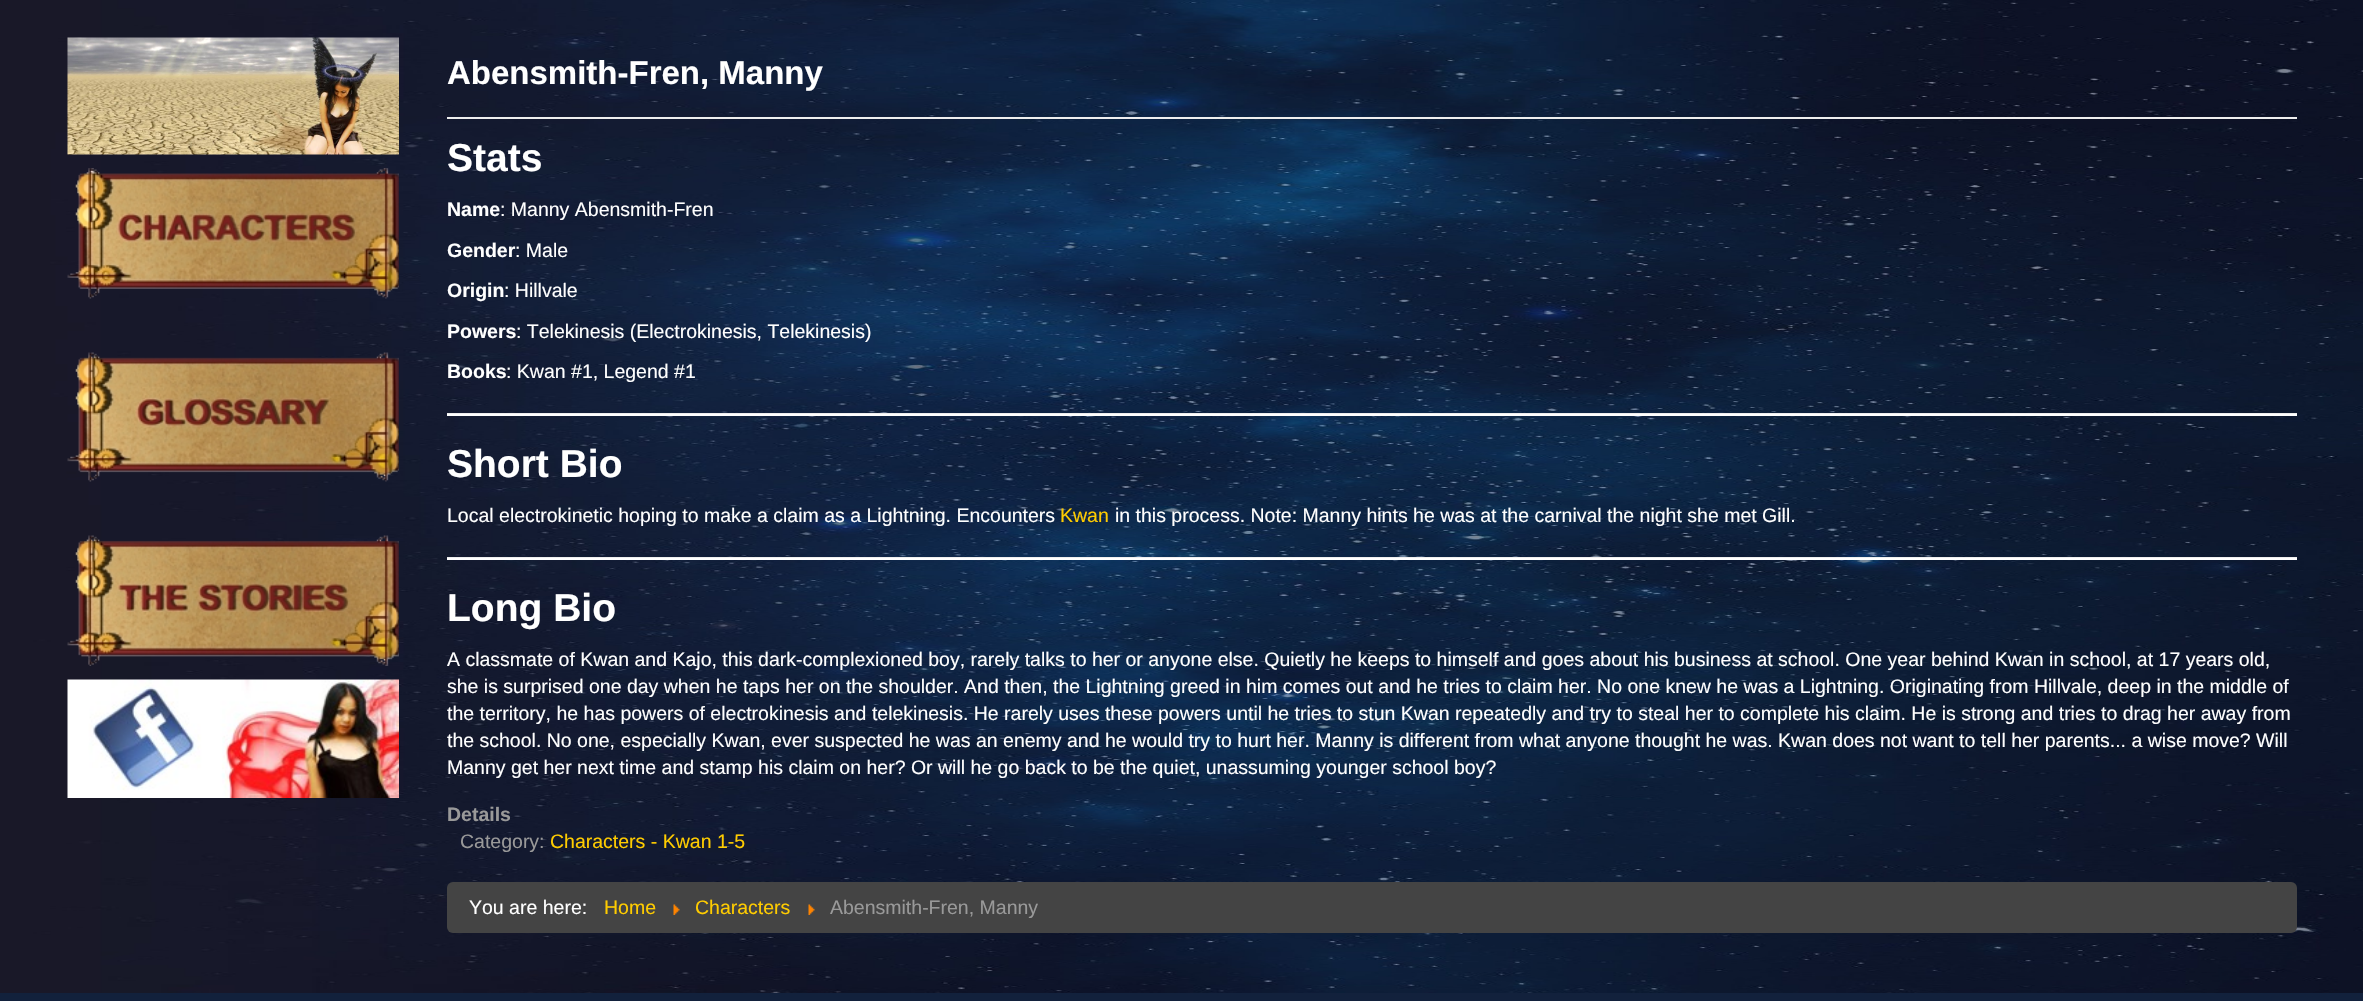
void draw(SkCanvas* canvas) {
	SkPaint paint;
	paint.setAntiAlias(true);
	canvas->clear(0xff12213c);
	canvas->drawImageRect(SkImages::DeferredFromEncodedData(SkData::MakeFromFileName("img1.png")), SkRect::MakeXYWH(0, 0, 2363, 993), SkSamplingOptions());
	canvas->drawImageRect(SkImages::DeferredFromEncodedData(SkData::MakeFromFileName("img2.png")), SkRect::MakeXYWH(67, 37, 332, 118), SkSamplingOptions());
	canvas->drawImageRect(SkImages::DeferredFromEncodedData(SkData::MakeFromFileName("img3.png")), SkRect::MakeXYWH(67, 168, 332, 131), SkSamplingOptions());
	canvas->drawImageRect(SkImages::DeferredFromEncodedData(SkData::MakeFromFileName("img4.png")), SkRect::MakeXYWH(67, 352, 332, 130), SkSamplingOptions());
	canvas->drawImageRect(SkImages::DeferredFromEncodedData(SkData::MakeFromFileName("img5.png")), SkRect::MakeXYWH(67, 535, 332, 131), SkSamplingOptions());
	canvas->drawImageRect(SkImages::DeferredFromEncodedData(SkData::MakeFromFileName("img6.png")), SkRect::MakeXYWH(67, 679, 332, 119), SkSamplingOptions());
	paint.setColor(0xffeeeeee);
	canvas->drawRect(SkRect::MakeXYWH(447, 117, 1850, 2), paint);
	SkFont f1(fontMgr->matchFamilyStyle("Liberation Sans", SkFontStyle::Bold()), 33);
	f1.setSubpixel(true);
	paint.setColor(0xffffffff);
	canvas->drawString("Abensmith-Fren, Manny", 447, 84, f1, paint);
	SkFont f2(fontMgr->matchFamilyStyle("Liberation Sans", SkFontStyle::Bold()), 39);
	f2.setSubpixel(true);
	canvas->drawString("Stats", 447, 171, f2, paint);
	SkFont f3(fontMgr->matchFamilyStyle("Liberation Sans", SkFontStyle::Bold()), 19.5);
	f3.setSubpixel(true);
	canvas->drawString("Name", 447, 216, f3, paint);
	SkFont f4(fontMgr->matchFamilyStyle("Liberation Sans", SkFontStyle::Normal()), 19.5);
	f4.setSubpixel(true);
	canvas->drawString(": Manny Abensmith-Fren", 500, 216, f4, paint);
	canvas->drawString("Gender", 447, 257, f3, paint);
	canvas->drawString(": Male", 515, 257, f4, paint);
	canvas->drawString("Origin", 447, 297, f3, paint);
	canvas->drawString(": Hillvale", 504, 297, f4, paint);
	canvas->drawString("Powers", 447, 338, f3, paint);
	canvas->drawString(": Telekinesis (Electrokinesis, Telekinesis)", 516, 338, f4, paint);
	canvas->drawString("Books", 447, 378, f3, paint);
	canvas->drawString(": Kwan #1, Legend #1", 506, 378, f4, paint);
	paint.setColor(0xffeeeeee);
	canvas->drawRect(SkRect::MakeXYWH(447, 413, 1850, 1), paint);
	paint.setColor(0xffffffff);
	canvas->drawRect(SkRect::MakeXYWH(447, 414, 1850, 2), paint);
	canvas->drawString("Short Bio", 447, 477, f2, paint);
	canvas->drawString("Local electrokinetic hoping to make a claim as a Lightning. Encounters", 447, 522, f4, paint);
	paint.setColor(0xffffcc00);
	canvas->drawString("Kwan", 1060, 522, f4, paint);
	paint.setColor(0xffffffff);
	canvas->drawString("in this process. Note: Manny hints he was at the carnival the night she met Gill.", 1115, 522, f4, paint);
	paint.setColor(0xffeeeeee);
	canvas->drawRect(SkRect::MakeXYWH(447, 557, 1850, 1), paint);
	paint.setColor(0xffffffff);
	canvas->drawRect(SkRect::MakeXYWH(447, 558, 1850, 2), paint);
	canvas->drawString("Long Bio", 447, 621, f2, paint);
	canvas->drawString("A classmate of Kwan and Kajo, this dark-complexioned boy, rarely talks to her or anyone else. Quietly he keeps to himself and goes about his business at school. One year behind Kwan in school, at 17 years old,", 447, 666, f4, paint);
	canvas->drawString("she is surprised one day when he taps her on the shoulder. And then, the Lightning greed in him comes out and he tries to claim her. No one knew he was a Lightning. Originating from Hillvale, deep in the middle of", 447, 693, f4, paint);
	canvas->drawString("the territory, he has powers of electrokinesis and telekinesis. He rarely uses these powers until he tries to stun Kwan repeatedly and try to steal her to complete his claim. He is strong and tries to drag her away from", 447, 720, f4, paint);
	canvas->drawString("the school. No one, especially Kwan, ever suspected he was an enemy and he would try to hurt her. Manny is different from what anyone thought he was. Kwan does not want to tell her parents... a wise move? Will", 447, 747, f4, paint);
	canvas->drawString("Manny get her next time and stamp his claim on her? Or will he go back to be the quiet, unassuming younger school boy?", 447, 774, f4, paint);
	paint.setColor(0xff999999);
	canvas->drawString("Details", 447, 821, f3, paint);
	canvas->drawString("Category:", 460, 848, f4, paint);
	paint.setColor(0xffffcc00);
	canvas->drawString("Characters - Kwan 1-5", 550, 848, f4, paint);
	paint.setColor(0xff444444);
	canvas->drawRoundRect(SkRect::MakeXYWH(447, 882, 1850, 51), 6, 6, paint);
	paint.setColor(0xffffffff);
	canvas->drawString("You are here:", 469, 914, f4, paint);
	paint.setColor(0xffffcc00);
	canvas->drawString("Home", 604, 914, f4, paint);
	canvas->drawImageRect(SkImages::DeferredFromEncodedData(SkData::MakeFromFileName("img7.png")), SkRect::MakeXYWH(673, 904, 7, 11), SkSamplingOptions());
	canvas->drawString("Characters", 695, 914, f4, paint);
	canvas->drawImageRect(SkImages::DeferredFromEncodedData(SkData::MakeFromFileName("img7.png")), SkRect::MakeXYWH(808, 904, 7, 11), SkSamplingOptions());
	paint.setColor(0xff999999);
	canvas->drawString("Abensmith-Fren, Manny", 830, 914, f4, paint);
}
